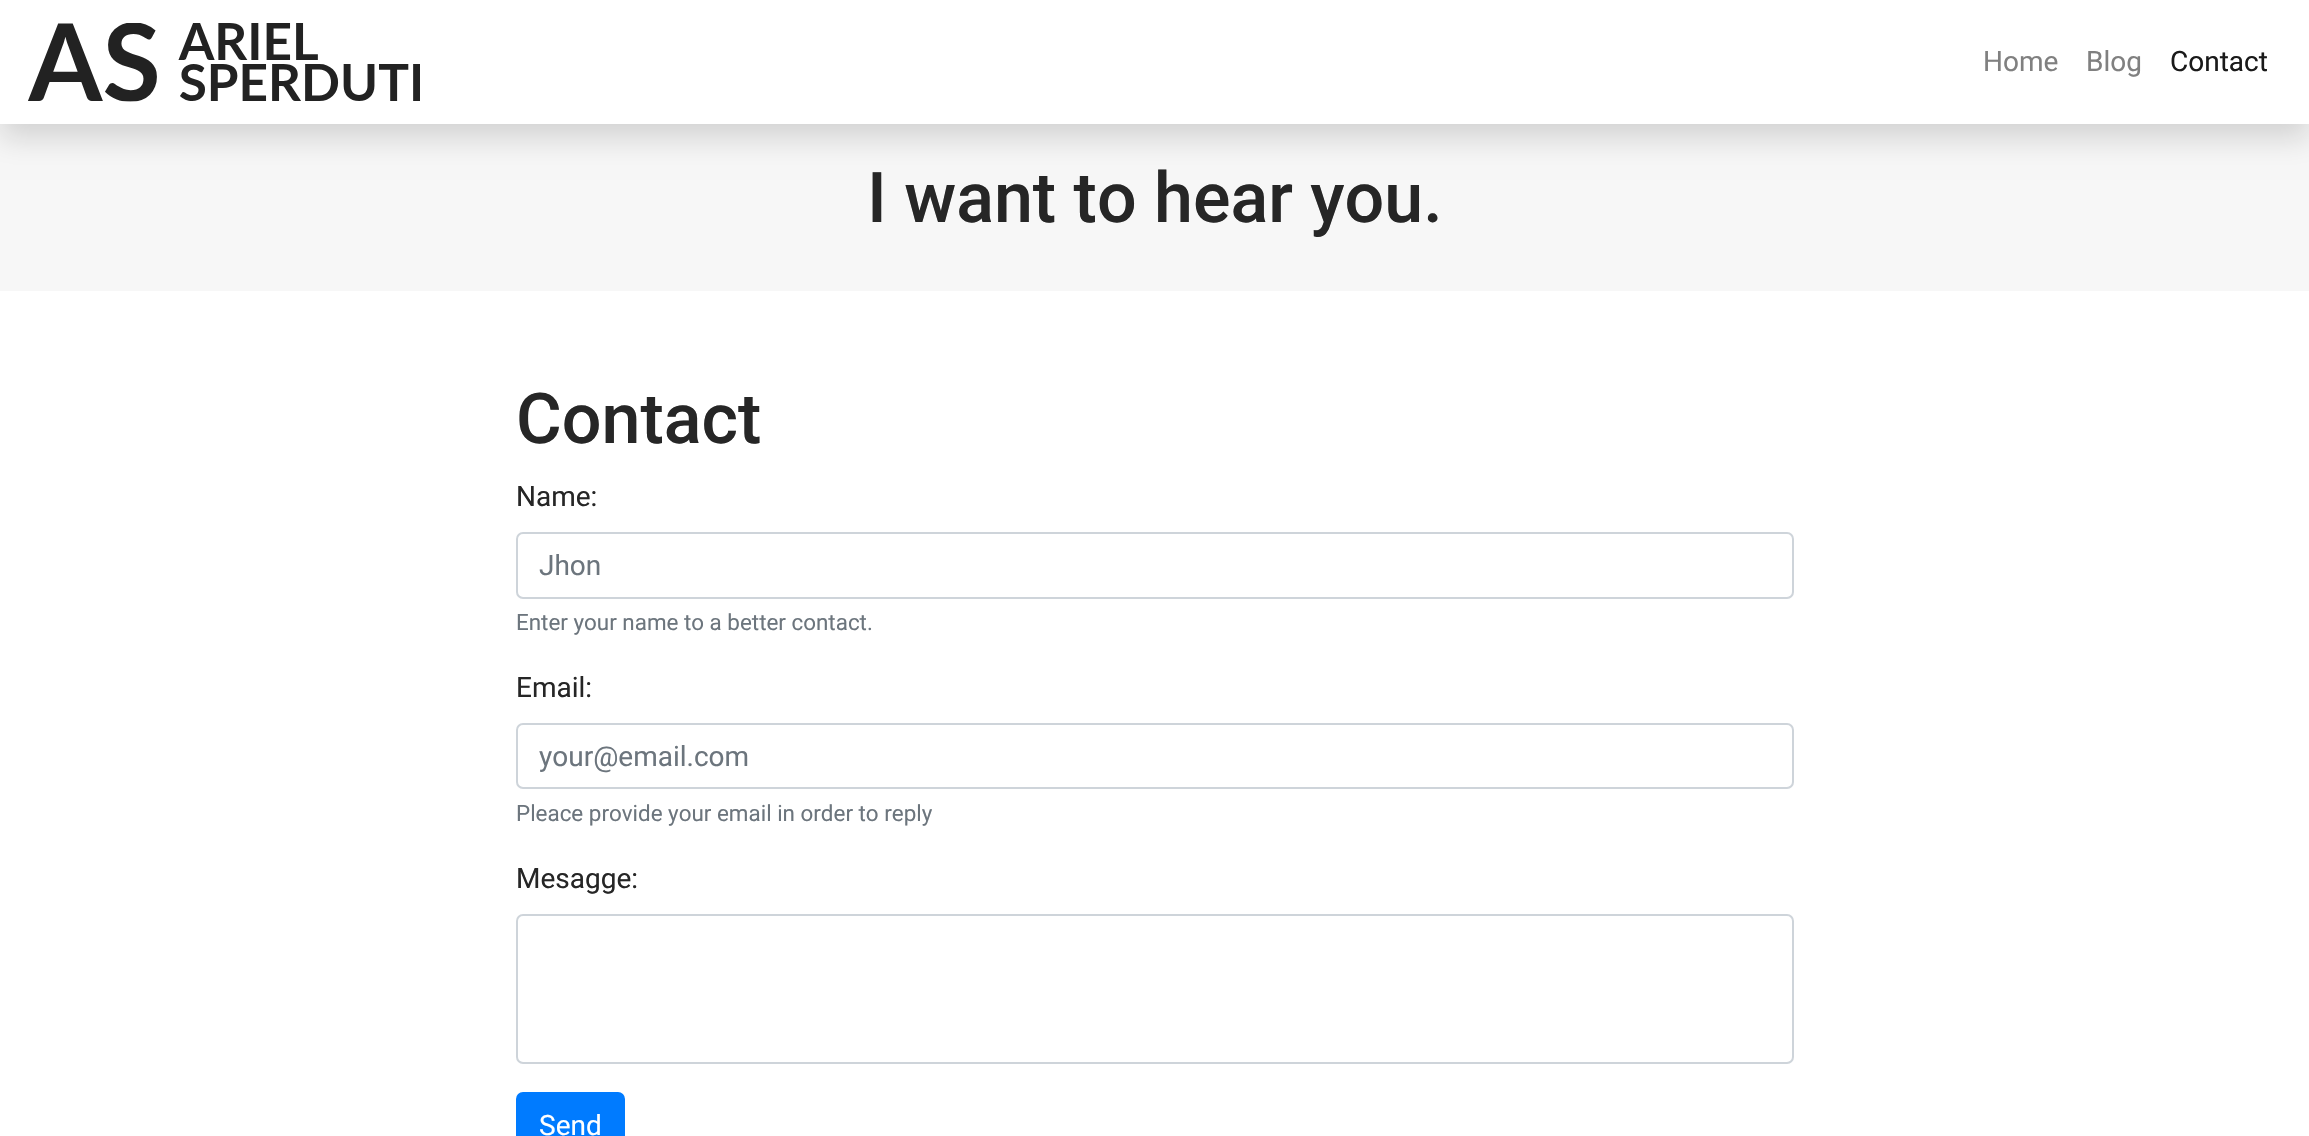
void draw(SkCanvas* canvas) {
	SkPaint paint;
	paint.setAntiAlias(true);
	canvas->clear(0xffffffff);
	paint.setColor(0xfff7f7f7);
	canvas->drawRect(SkRect::MakeXYWH(0, 124, 2309, 167), paint);
	paint.setColor(0x26000000);
	paint.setMaskFilter(SkMaskFilter::MakeBlur(kNormal_SkBlurStyle, 14));
	canvas->drawRect(SkRect::MakeXYWH(0, 14, 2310, 124), paint);
	paint.setMaskFilter(nullptr);
	paint.setColor(0xffffffff);
	canvas->drawRect(SkRect::MakeXYWH(0, 0, 2309, 124), paint);
	canvas->drawImageRect(SkImages::DeferredFromEncodedData(SkData::MakeFromFileName("img1.png")), SkRect::MakeXYWH(28, 23, 392, 79), SkSamplingOptions());
	SkFont f1(fontMgr->matchFamilyStyle("Roboto", SkFontStyle::Normal()), 28);
	f1.setSubpixel(true);
	paint.setColor(0xff808080);
	canvas->drawString("Home", 1983, 71, f1, paint);
	canvas->drawString("Blog", 2086, 71, f1, paint);
	paint.setColor(0xff1a1a1a);
	canvas->drawString("Contact", 2170, 71, f1, paint);
	SkFont f2(fontMgr->matchFamilyStyle("Roboto", SkFontStyle(500, SkFontStyle::kNormal_Width, SkFontStyle::kUpright_Slant)), 70);
	f2.setSubpixel(true);
	paint.setColor(0xff262626);
	canvas->drawString("I want to hear you.", 867, 222, f2, paint);
	canvas->drawString("Contact", 516, 443, f2, paint);
	canvas->drawString("Name:", 516, 506, f1, paint);
	paint.setStroke(true);
	paint.setStrokeWidth(2);
	paint.setColor(0xffced4da);
	canvas->drawRoundRect(SkRect::MakeXYWH(517, 533, 1276, 65), 6, 6, paint);
	paint.setStroke(false);
	paint.setColor(0xff6c757d);
	canvas->drawString("Jhon", 539, 575, f1, paint);
	SkFont f3(fontMgr->matchFamilyStyle("Roboto", SkFontStyle::Normal()), 22.4);
	f3.setSubpixel(true);
	canvas->drawString("Enter your name to a better contact.", 516, 630, f3, paint);
	paint.setColor(0xff262626);
	canvas->drawString("Email:", 516, 697, f1, paint);
	paint.setStroke(true);
	paint.setColor(0xffced4da);
	canvas->drawRoundRect(SkRect::MakeXYWH(517, 724, 1276, 64), 6, 6, paint);
	paint.setStroke(false);
	paint.setColor(0xff6c757d);
	canvas->drawString("your@email.com", 539, 766, f1, paint);
	canvas->drawString("Pleace provide your email in order to reply", 516, 821, f3, paint);
	paint.setColor(0xff262626);
	canvas->drawString("Mesagge:", 516, 888, f1, paint);
	paint.setStroke(true);
	paint.setColor(0xffced4da);
	canvas->drawRoundRect(SkRect::MakeXYWH(517, 915, 1276, 148), 6, 6, paint);
	paint.setStroke(false);
	paint.setColor(0xff007bff);
	canvas->drawRoundRect(SkRect::MakeXYWH(517, 1093, 107, 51), 6, 6, paint);
	paint.setStroke(true);
	canvas->drawRoundRect(SkRect::MakeXYWH(517, 1093, 107, 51), 6, 6, paint);
	paint.setStroke(false);
	paint.setColor(0xffffffff);
	canvas->drawString("Send", 539, 1135, f1, paint);
}
